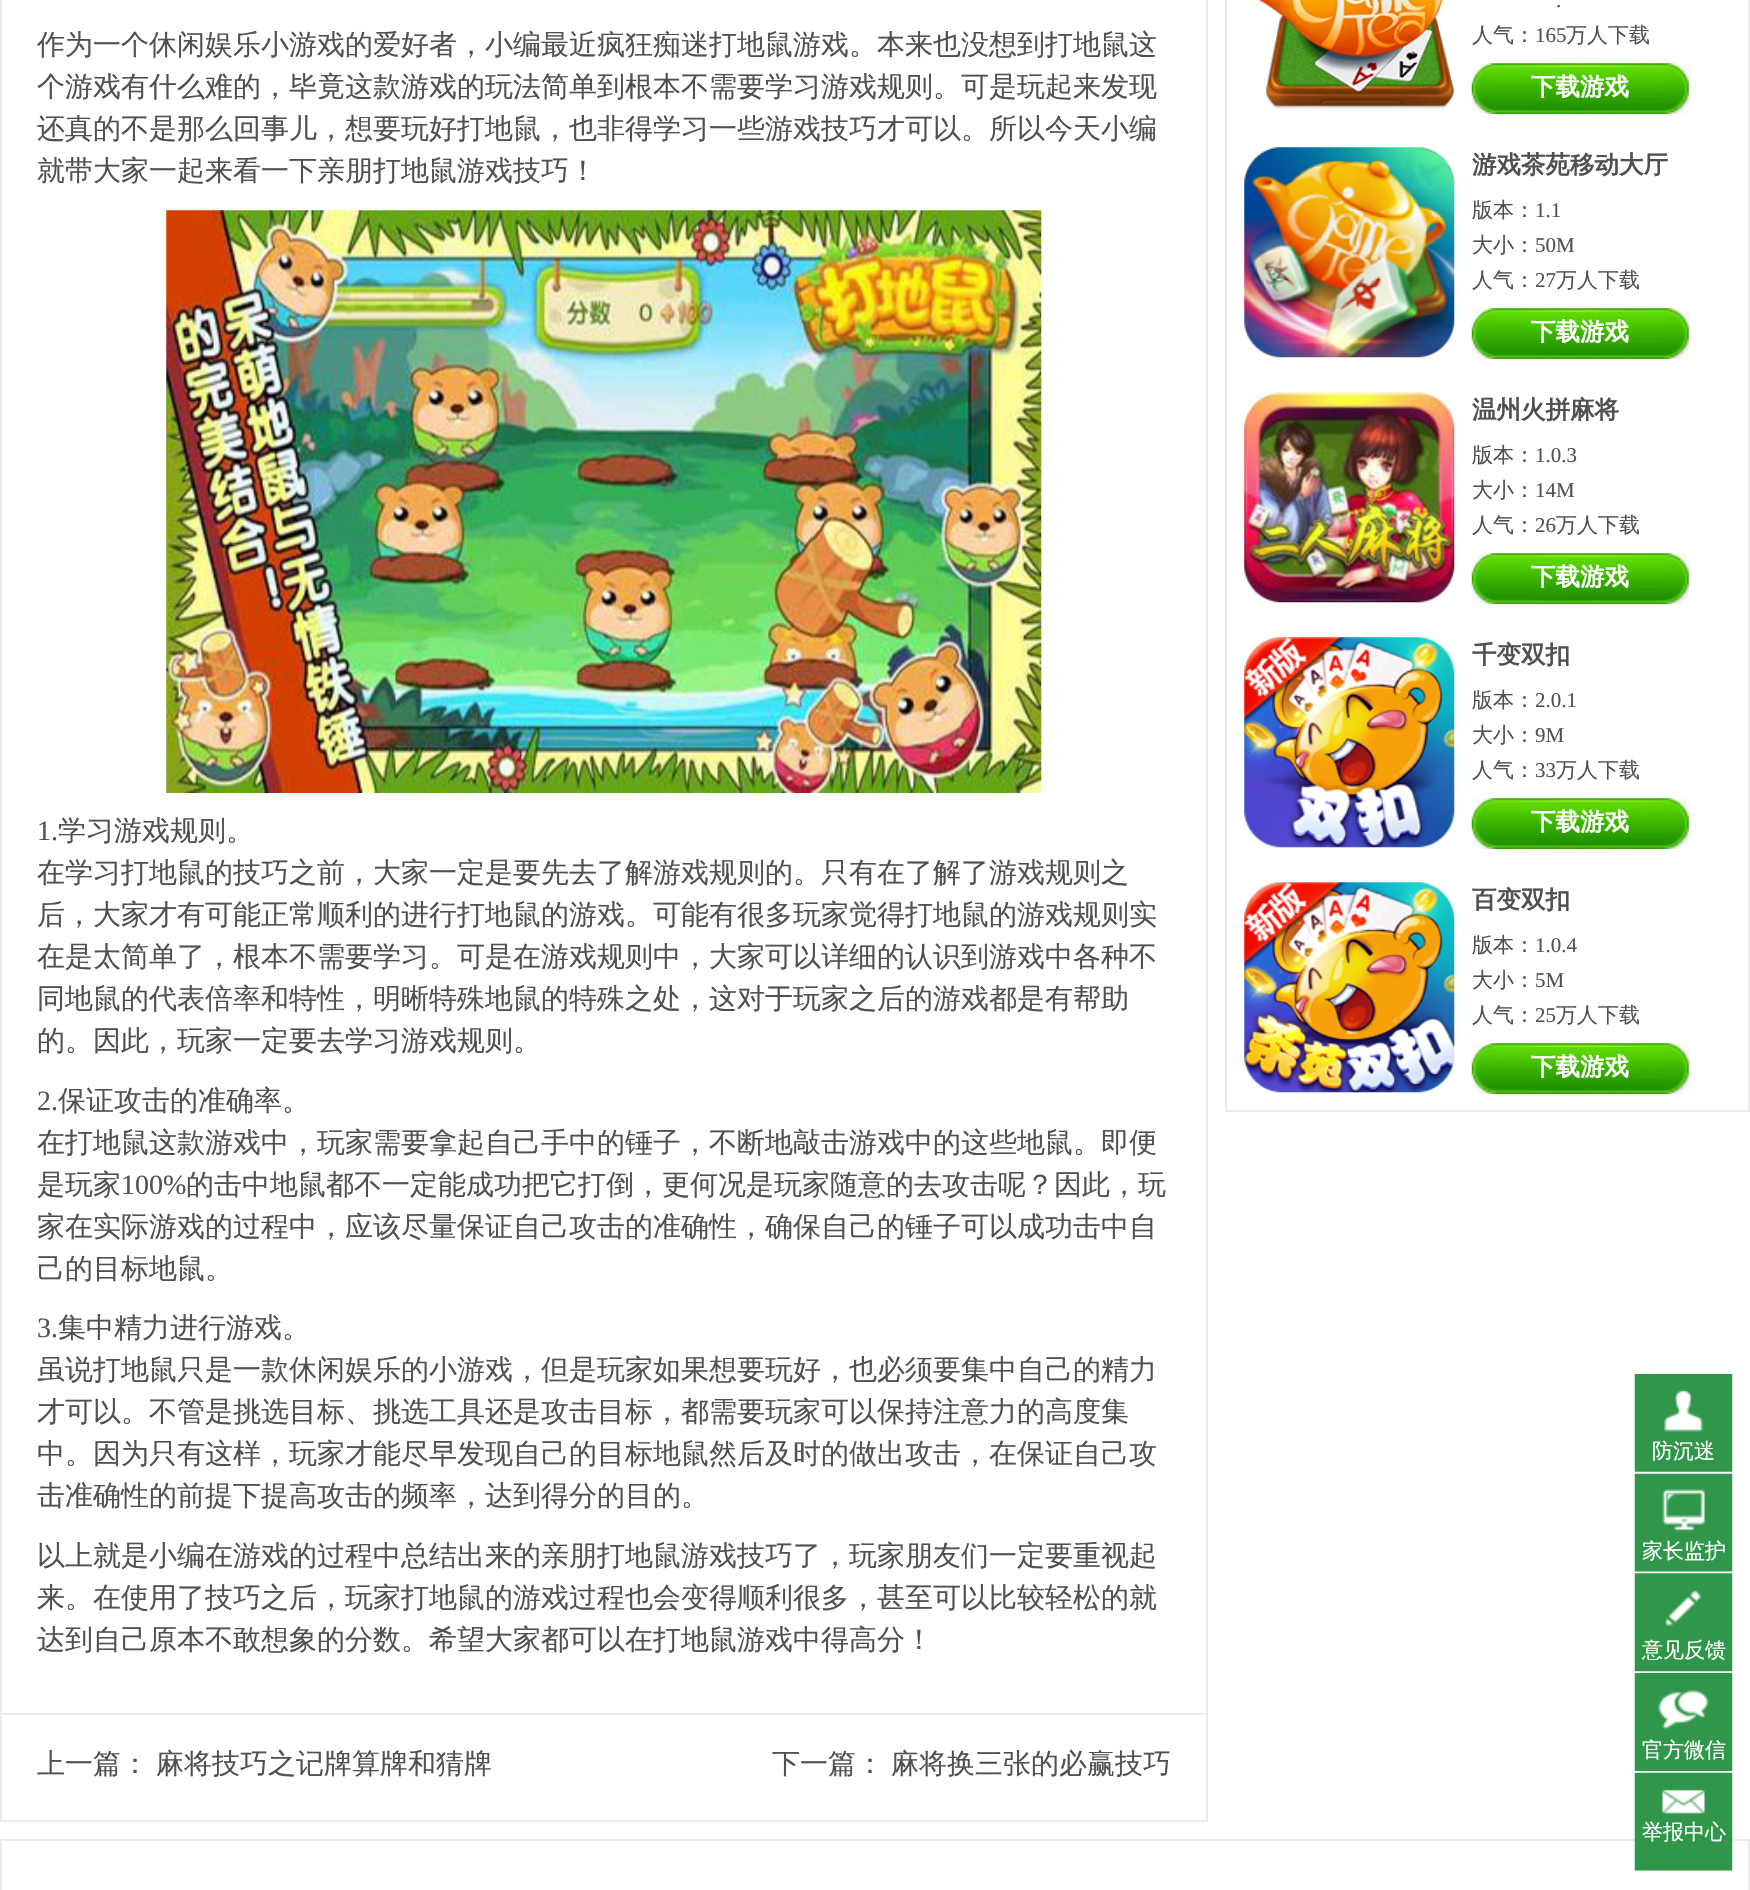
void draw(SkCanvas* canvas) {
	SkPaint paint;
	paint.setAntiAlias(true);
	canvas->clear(0xffffffff);
	paint.setColor(0xffebebeb);
	canvas->drawRect(SkRect::MakeXYWH(1206, 0, 2, 1822), paint);
	canvas->drawRect(SkRect::MakeXYWH(0, 1820, 1208, 2), paint);
	canvas->drawRect(SkRect::MakeXYWH(0, 0, 2, 1822), paint);
	SkFont f1(fontMgr->matchFamilyStyle("WenQuanYi Zen Hei", SkFontStyle(500, SkFontStyle::kNormal_Width, SkFontStyle::kUpright_Slant)), 28);
	f1.setSubpixel(true);
	paint.setColor(0xff505050);
	canvas->drawString("作为一个休闲娱乐小游戏的爱好者，小编最近疯狂痴迷打地鼠游戏。本来也没想到打地鼠这", 37, 54, f1, paint);
	canvas->drawString("个游戏有什么难的，毕竟这款游戏的玩法简单到根本不需要学习游戏规则。可是玩起来发现", 37, 96, f1, paint);
	canvas->drawString("还真的不是那么回事儿，想要玩好打地鼠，也非得学习一些游戏技巧才可以。所以今天小编", 37, 138, f1, paint);
	canvas->drawString("就带大家一起来看一下亲朋打地鼠游戏技巧！", 37, 180, f1, paint);
	canvas->drawImageRect(SkImages::DeferredFromEncodedData(SkData::MakeFromFileName("img1.png")), SkRect::MakeXYWH(166, 210, 876, 583), SkSamplingOptions());
	SkFont f2(fontMgr->matchFamilyStyle("Liberation Serif", SkFontStyle::Normal()), 28);
	f2.setSubpixel(true);
	canvas->drawString("1.", 37, 840, f2, paint);
	canvas->drawString("学习游戏规则。", 58, 840, f1, paint);
	canvas->drawString("在学习打地鼠的技巧之前，大家一定是要先去了解游戏规则的。只有在了解了游戏规则之", 37, 882, f1, paint);
	canvas->drawString("后，大家才有可能正常顺利的进行打地鼠的游戏。可能有很多玩家觉得打地鼠的游戏规则实", 37, 924, f1, paint);
	canvas->drawString("在是太简单了，根本不需要学习。可是在游戏规则中，大家可以详细的认识到游戏中各种不", 37, 966, f1, paint);
	canvas->drawString("同地鼠的代表倍率和特性，明晰特殊地鼠的特殊之处，这对于玩家之后的游戏都是有帮助", 37, 1008, f1, paint);
	canvas->drawString("的。因此，玩家一定要去学习游戏规则。", 37, 1050, f1, paint);
	canvas->drawString("2.", 37, 1110, f2, paint);
	canvas->drawString("保证攻击的准确率。", 58, 1110, f1, paint);
	canvas->drawString("在打地鼠这款游戏中，玩家需要拿起自己手中的锤子，不断地敲击游戏中的这些地鼠。即便", 37, 1152, f1, paint);
	canvas->drawString("是玩家", 37, 1194, f1, paint);
	canvas->drawString("100%", 121, 1194, f2, paint);
	canvas->drawString("的击中地鼠都不一定能成功把它打倒，更何况是玩家随意的去攻击呢？因此，玩", 186, 1194, f1, paint);
	canvas->drawString("家在实际游戏的过程中，应该尽量保证自己攻击的准确性，确保自己的锤子可以成功击中自", 37, 1236, f1, paint);
	canvas->drawString("己的目标地鼠。", 37, 1278, f1, paint);
	canvas->drawString("3.", 37, 1337, f2, paint);
	canvas->drawString("集中精力进行游戏。", 58, 1337, f1, paint);
	canvas->drawString("虽说打地鼠只是一款休闲娱乐的小游戏，但是玩家如果想要玩好，也必须要集中自己的精力", 37, 1379, f1, paint);
	canvas->drawString("才可以。不管是挑选目标、挑选工具还是攻击目标，都需要玩家可以保持注意力的高度集", 37, 1421, f1, paint);
	canvas->drawString("中。因为只有这样，玩家才能尽早发现自己的目标地鼠然后及时的做出攻击，在保证自己攻", 37, 1463, f1, paint);
	canvas->drawString("击准确性的前提下提高攻击的频率，达到得分的目的。", 37, 1505, f1, paint);
	canvas->drawString("以上就是小编在游戏的过程中总结出来的亲朋打地鼠游戏技巧了，玩家朋友们一定要重视起", 37, 1565, f1, paint);
	canvas->drawString("来。在使用了技巧之后，玩家打地鼠的游戏过程也会变得顺利很多，甚至可以比较轻松的就", 37, 1607, f1, paint);
	canvas->drawString("达到自己原本不敢想象的分数。希望大家都可以在打地鼠游戏中得高分！", 37, 1649, f1, paint);
	paint.setColor(0xffebebeb);
	canvas->drawRect(SkRect::MakeXYWH(2, 1713, 1204, 2), paint);
	paint.setColor(0xff505050);
	canvas->drawString("上一篇：", 37, 1773, f1, paint);
	canvas->drawString("麻将技巧之记牌算牌和猜牌", 156, 1773, f1, paint);
	canvas->drawString("下一篇：", 772, 1773, f1, paint);
	canvas->drawString("麻将换三张的必赢技巧", 891, 1773, f1, paint);
	paint.setColor(0xffebebeb);
	canvas->drawRect(SkRect::MakeXYWH(1748, 0, 2, 1111), paint);
	canvas->drawRect(SkRect::MakeXYWH(1225, 1110, 525, 2), paint);
	canvas->drawRect(SkRect::MakeXYWH(1225, 0, 2, 1111), paint);
	canvas->drawImageRect(SkImages::DeferredFromEncodedData(SkData::MakeFromFileName("img2.png")), SkRect::MakeXYWH(1258, 0, 197, 109), SkSamplingOptions());
	SkFont f3(fontMgr->matchFamilyStyle("Liberation Serif", SkFontStyle::Normal()), 21);
	f3.setSubpixel(true);
	paint.setColor(0xff505050);
	canvas->drawString(".", 1556, 7, f3, paint);
	SkFont f4(fontMgr->matchFamilyStyle("WenQuanYi Zen Hei", SkFontStyle(500, SkFontStyle::kNormal_Width, SkFontStyle::kUpright_Slant)), 21);
	f4.setSubpixel(true);
	canvas->drawString("人气：", 1472, 42, f4, paint);
	canvas->drawString("165", 1535, 42, f3, paint);
	canvas->drawString("万人下载", 1566, 42, f4, paint);
	canvas->drawImageRect(SkImages::DeferredFromEncodedData(SkData::MakeFromFileName("img3.png")), SkRect::MakeXYWH(1471, 63, 218, 51), SkSamplingOptions());
	SkFont f5(fontMgr->matchFamilyStyle("WenQuanYi Zen Hei", SkFontStyle::Bold()), 24.5);
	f5.setSubpixel(true);
	paint.setColor(0xffffffff);
	canvas->drawString("下载游戏", 1531, 95, f5, paint);
	canvas->drawImageRect(SkImages::DeferredFromEncodedData(SkData::MakeFromFileName("img4.png")), SkRect::MakeXYWH(1244, 147, 211, 211), SkSamplingOptions());
	paint.setColor(0xff505050);
	canvas->drawString("游戏茶苑移动大厅", 1472, 173, f5, paint);
	canvas->drawString("版本：", 1472, 217, f4, paint);
	canvas->drawString("1.1", 1535, 217, f3, paint);
	canvas->drawString("大小：", 1472, 252, f4, paint);
	canvas->drawString("50M", 1535, 252, f3, paint);
	canvas->drawString("人气：", 1472, 287, f4, paint);
	canvas->drawString("27", 1535, 287, f3, paint);
	canvas->drawString("万人下载", 1556, 287, f4, paint);
	canvas->drawImageRect(SkImages::DeferredFromEncodedData(SkData::MakeFromFileName("img3.png")), SkRect::MakeXYWH(1471, 308, 218, 51), SkSamplingOptions());
	paint.setColor(0xffffffff);
	canvas->drawString("下载游戏", 1531, 340, f5, paint);
	canvas->drawImageRect(SkImages::DeferredFromEncodedData(SkData::MakeFromFileName("img5.png")), SkRect::MakeXYWH(1244, 392, 211, 211), SkSamplingOptions());
	paint.setColor(0xff505050);
	canvas->drawString("温州火拼麻将", 1472, 418, f5, paint);
	canvas->drawString("版本：", 1472, 462, f4, paint);
	canvas->drawString("1.0.3", 1535, 462, f3, paint);
	canvas->drawString("大小：", 1472, 497, f4, paint);
	canvas->drawString("14M", 1535, 497, f3, paint);
	canvas->drawString("人气：", 1472, 532, f4, paint);
	canvas->drawString("26", 1535, 532, f3, paint);
	canvas->drawString("万人下载", 1556, 532, f4, paint);
	canvas->drawImageRect(SkImages::DeferredFromEncodedData(SkData::MakeFromFileName("img3.png")), SkRect::MakeXYWH(1471, 553, 218, 51), SkSamplingOptions());
	paint.setColor(0xffffffff);
	canvas->drawString("下载游戏", 1531, 585, f5, paint);
	canvas->drawImageRect(SkImages::DeferredFromEncodedData(SkData::MakeFromFileName("img6.png")), SkRect::MakeXYWH(1244, 637, 211, 211), SkSamplingOptions());
	paint.setColor(0xff505050);
	canvas->drawString("千变双扣", 1472, 663, f5, paint);
	canvas->drawString("版本：", 1472, 707, f4, paint);
	canvas->drawString("2.0.1", 1535, 707, f3, paint);
	canvas->drawString("大小：", 1472, 742, f4, paint);
	canvas->drawString("9M", 1535, 742, f3, paint);
	canvas->drawString("人气：", 1472, 777, f4, paint);
	canvas->drawString("33", 1535, 777, f3, paint);
	canvas->drawString("万人下载", 1556, 777, f4, paint);
	canvas->drawImageRect(SkImages::DeferredFromEncodedData(SkData::MakeFromFileName("img3.png")), SkRect::MakeXYWH(1471, 798, 218, 51), SkSamplingOptions());
	paint.setColor(0xffffffff);
	canvas->drawString("下载游戏", 1531, 830, f5, paint);
	canvas->drawImageRect(SkImages::DeferredFromEncodedData(SkData::MakeFromFileName("img7.png")), SkRect::MakeXYWH(1244, 882, 211, 211), SkSamplingOptions());
	paint.setColor(0xff505050);
	canvas->drawString("百变双扣", 1472, 908, f5, paint);
	canvas->drawString("版本：", 1472, 952, f4, paint);
	canvas->drawString("1.0.4", 1535, 952, f3, paint);
	canvas->drawString("大小：", 1472, 987, f4, paint);
	canvas->drawString("5M", 1535, 987, f3, paint);
	canvas->drawString("人气：", 1472, 1022, f4, paint);
	canvas->drawString("25", 1535, 1022, f3, paint);
	canvas->drawString("万人下载", 1556, 1022, f4, paint);
	canvas->drawImageRect(SkImages::DeferredFromEncodedData(SkData::MakeFromFileName("img3.png")), SkRect::MakeXYWH(1471, 1043, 218, 51), SkSamplingOptions());
	paint.setColor(0xffffffff);
	canvas->drawString("下载游戏", 1531, 1075, f5, paint);
	paint.setColor(0xffebebeb);
	canvas->drawRect(SkRect::MakeXYWH(0, 1839, 1750, 2), paint);
	canvas->drawRect(SkRect::MakeXYWH(1748, 1839, 2, 51), paint);
	canvas->drawRect(SkRect::MakeXYWH(0, 1839, 2, 51), paint);
	canvas->drawImageRect(SkImages::DeferredFromEncodedData(SkData::MakeFromFileName("img8.png")), SkRect::MakeXYWH(1634, 1373, 99, 99), SkSamplingOptions());
	paint.setColor(0xffffffff);
	canvas->drawString("防沉迷", 1652, 1458, f4, paint);
	canvas->drawImageRect(SkImages::DeferredFromEncodedData(SkData::MakeFromFileName("img9.png")), SkRect::MakeXYWH(1634, 1473, 99, 99), SkSamplingOptions());
	canvas->drawString("家长监护", 1642, 1558, f4, paint);
	canvas->drawImageRect(SkImages::DeferredFromEncodedData(SkData::MakeFromFileName("img10.png")), SkRect::MakeXYWH(1634, 1573, 99, 99), SkSamplingOptions());
	canvas->drawString("意见反馈", 1642, 1657, f4, paint);
	canvas->drawImageRect(SkImages::DeferredFromEncodedData(SkData::MakeFromFileName("img11.png")), SkRect::MakeXYWH(1634, 1673, 99, 98), SkSamplingOptions());
	canvas->drawString("官方微信", 1642, 1757, f4, paint);
	canvas->drawImageRect(SkImages::DeferredFromEncodedData(SkData::MakeFromFileName("img12.png")), SkRect::MakeXYWH(1634, 1772, 99, 99), SkSamplingOptions());
	canvas->drawString("举报中心", 1642, 1839, f4, paint);
}
